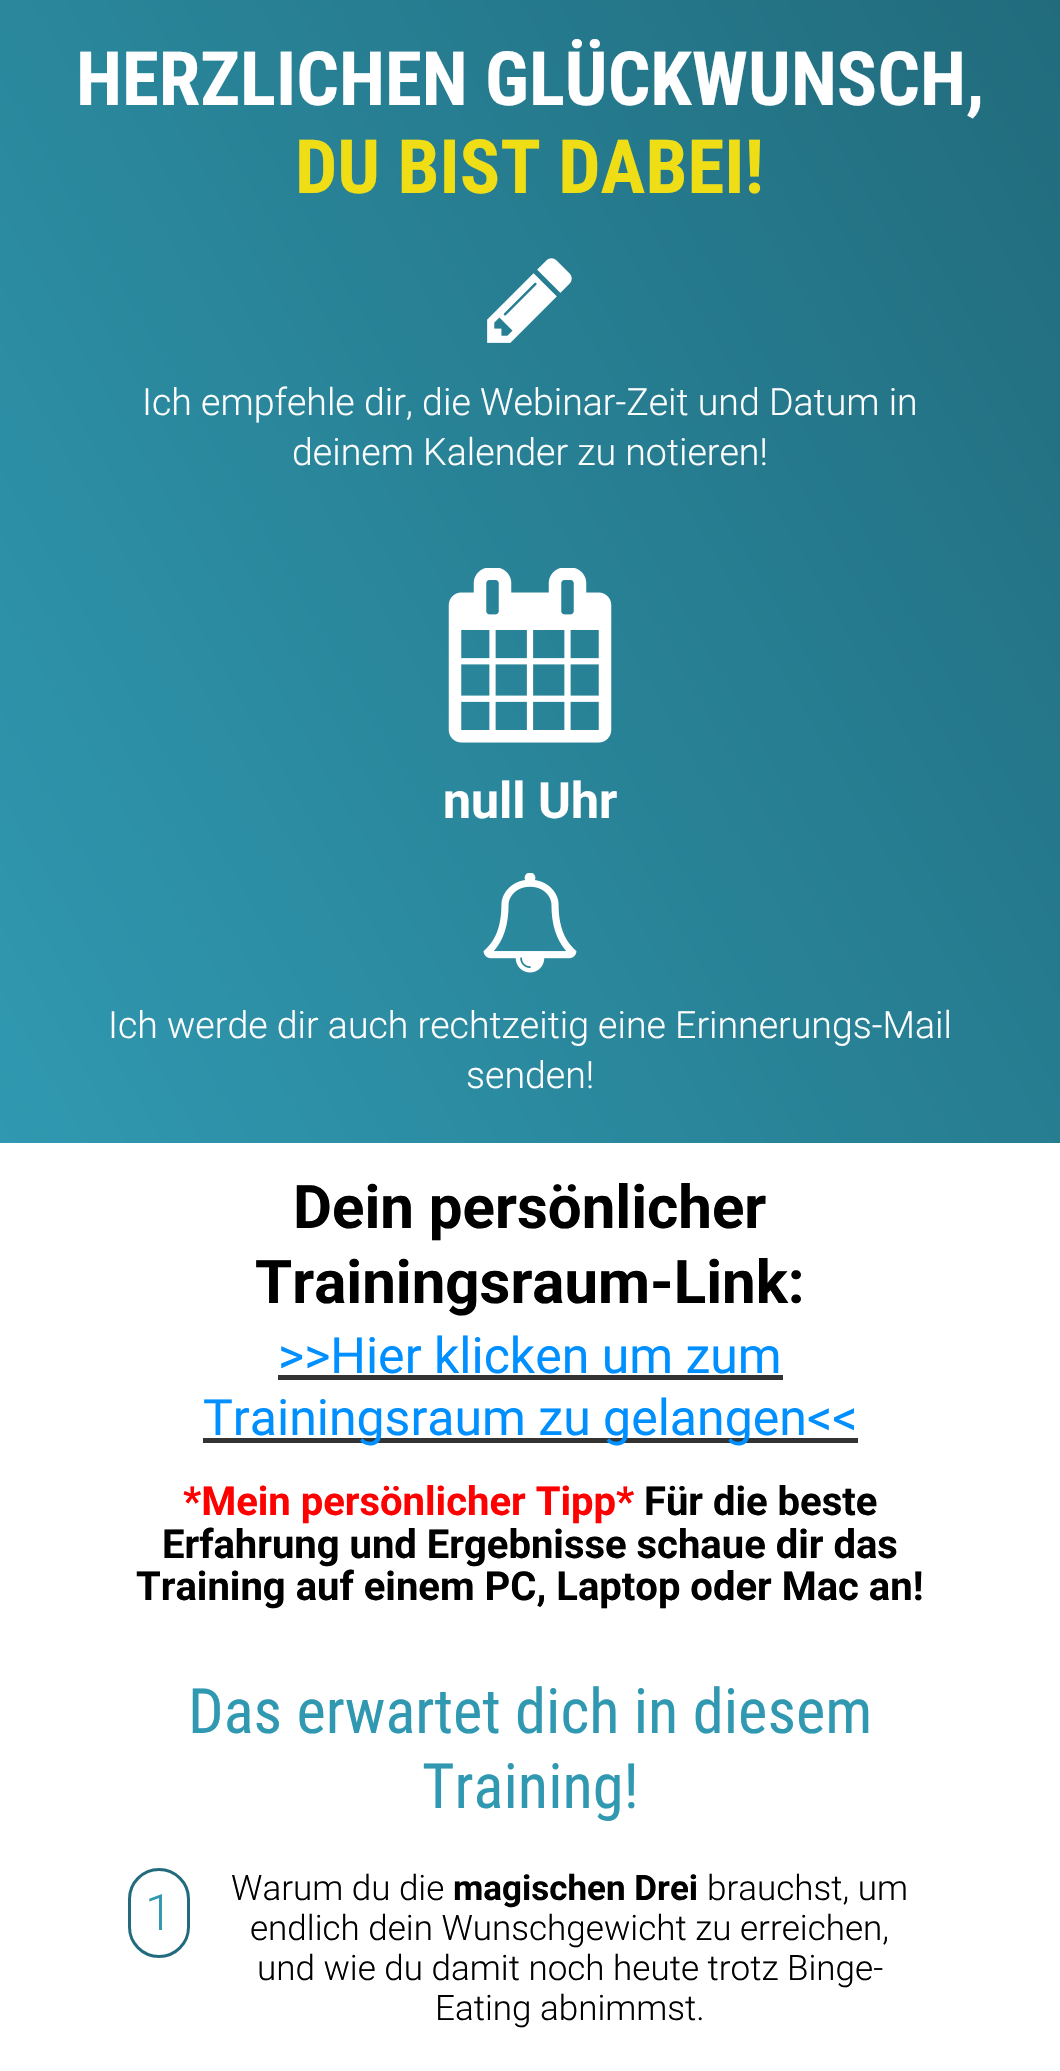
void draw(SkCanvas* canvas) {
	SkPaint paint;
	paint.setAntiAlias(true);
	canvas->clear(0xffffffff);
	{
		const SkColor colors[] = {0xff309ab2, 0xff216b7c};
		const float stops[] = {0, 1};
		const SkPoint ends[] = {{-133, 988}, {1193, 222}};
		paint.setShader(SkGradientShader::MakeLinear(ends, colors, stops, 2, SkTileMode::kClamp));
		paint.setAlpha(255);
	}
	canvas->drawRect(SkRect::MakeXYWH(0, 0, 1060, 1143), paint);
	SkFont f1(fontMgr->matchFamilyStyle("Roboto Condensed", SkFontStyle::Bold()), 75);
	f1.setSubpixel(true);
	paint.setShader(nullptr);
	paint.setColor(0xffffffff);
	canvas->drawString("HERZLICHEN GLÜCKWUNSCH,", 76, 105, f1, paint);
	paint.setColor(0xffefdd16);
	canvas->drawString("DU BIST DABEI!", 295, 193, f1, paint);
	canvas->drawImageRect(SkImages::DeferredFromEncodedData(SkData::MakeFromFileName("img1.png")), SkRect::MakeXYWH(487, 258, 85, 85), SkSamplingOptions());
	SkFont f2(fontMgr->matchFamilyStyle("Roboto", SkFontStyle(300, SkFontStyle::kNormal_Width, SkFontStyle::kUpright_Slant)), 37.5);
	f2.setSubpixel(true);
	paint.setColor(0xffffffff);
	canvas->drawString("Ich empfehle dir, die Webinar-Zeit und Datum in", 142, 415, f2, paint);
	canvas->drawString("deinem Kalender zu notieren!", 292, 465, f2, paint);
	canvas->drawImageRect(SkImages::DeferredFromEncodedData(SkData::MakeFromFileName("img2.png")), SkRect::MakeXYWH(448, 568, 164, 175), SkSamplingOptions());
	SkFont f3(fontMgr->matchFamilyStyle("Roboto", SkFontStyle::Bold()), 50);
	f3.setSubpixel(true);
	canvas->drawString("null Uhr", 443, 818, f3, paint);
	canvas->drawImageRect(SkImages::DeferredFromEncodedData(SkData::MakeFromFileName("img3.png")), SkRect::MakeXYWH(483, 873, 94, 100), SkSamplingOptions());
	canvas->drawString("Ich werde dir auch rechtzeitig eine Erinnerungs-Mail", 108, 1038, f2, paint);
	canvas->drawString("senden!", 466, 1088, f2, paint);
	SkFont f4(fontMgr->matchFamilyStyle("Roboto", SkFontStyle::Bold()), 60);
	f4.setSubpixel(true);
	paint.setColor(0xff000000);
	canvas->drawString("Dein persönlicher", 293, 1228, f4, paint);
	canvas->drawString("Trainingsraum-Link:", 255, 1303, f4, paint);
	SkFont f5(fontMgr->matchFamilyStyle("Roboto", SkFontStyle::Normal()), 50);
	f5.setSubpixel(true);
	paint.setColor(0xff008fff);
	canvas->drawString(">>Hier klicken um zum", 278, 1373, f5, paint);
	paint.setColor(0xff333333);
	canvas->drawRect(SkRect::MakeXYWH(278, 1375, 505, 5), paint);
	canvas->drawRect(SkRect::MakeXYWH(203, 1438, 655, 5), paint);
	paint.setColor(0xff008fff);
	canvas->drawString("Trainingsraum zu gelangen<<", 203, 1435, f5, paint);
	SkFont f6(fontMgr->matchFamilyStyle("Roboto", SkFontStyle::Bold()), 40);
	f6.setSubpixel(true);
	paint.setColor(0xffff0000);
	canvas->drawString("*Mein persönlicher Tipp*", 183, 1515, f6, paint);
	paint.setColor(0xff000000);
	canvas->drawString("Für die beste", 644, 1515, f6, paint);
	canvas->drawString("Erfahrung und Ergebnisse schaue dir das", 162, 1558, f6, paint);
	canvas->drawString("Training auf einem PC, Laptop oder Mac an!", 136, 1600, f6, paint);
	SkFont f7(fontMgr->matchFamilyStyle("Roboto Condensed", SkFontStyle::Normal()), 62.5);
	f7.setSubpixel(true);
	paint.setColor(0xff3099b1);
	canvas->drawString("Das erwartet dich in diesem", 188, 1733, f7, paint);
	canvas->drawString("Training!", 422, 1808, f7, paint);
	paint.setStroke(true);
	paint.setStrokeWidth(3);
	paint.setColor(0xff216b7c);
	canvas->drawRoundRect(SkRect::MakeXYWH(129.5, 1869.5, 59, 87), 29.5, 29.5, paint);
	SkFont f8(fontMgr->matchFamilyStyle("Roboto", SkFontStyle(300, SkFontStyle::kNormal_Width, SkFontStyle::kUpright_Slant)), 50);
	f8.setSubpixel(true);
	paint.setStroke(false);
	paint.setColor(0xff3099b1);
	canvas->drawString("1", 145, 1930, f8, paint);
	SkFont f9(fontMgr->matchFamilyStyle("Roboto", SkFontStyle(300, SkFontStyle::kNormal_Width, SkFontStyle::kUpright_Slant)), 35);
	f9.setSubpixel(true);
	paint.setColor(0xff000000);
	canvas->drawString("Warum du die", 231, 1900, f9, paint);
	SkFont f10(fontMgr->matchFamilyStyle("Roboto", SkFontStyle::Bold()), 35);
	f10.setSubpixel(true);
	canvas->drawString("magischen Drei", 453, 1900, f10, paint);
	canvas->drawString("brauchst, um", 707, 1900, f9, paint);
	canvas->drawString("endlich dein Wunschgewicht zu erreichen,", 250, 1940, f9, paint);
	canvas->drawString("und wie du damit noch heute trotz Binge-", 257, 1980, f9, paint);
	canvas->drawString("Eating abnimmst.", 435, 2020, f9, paint);
}
